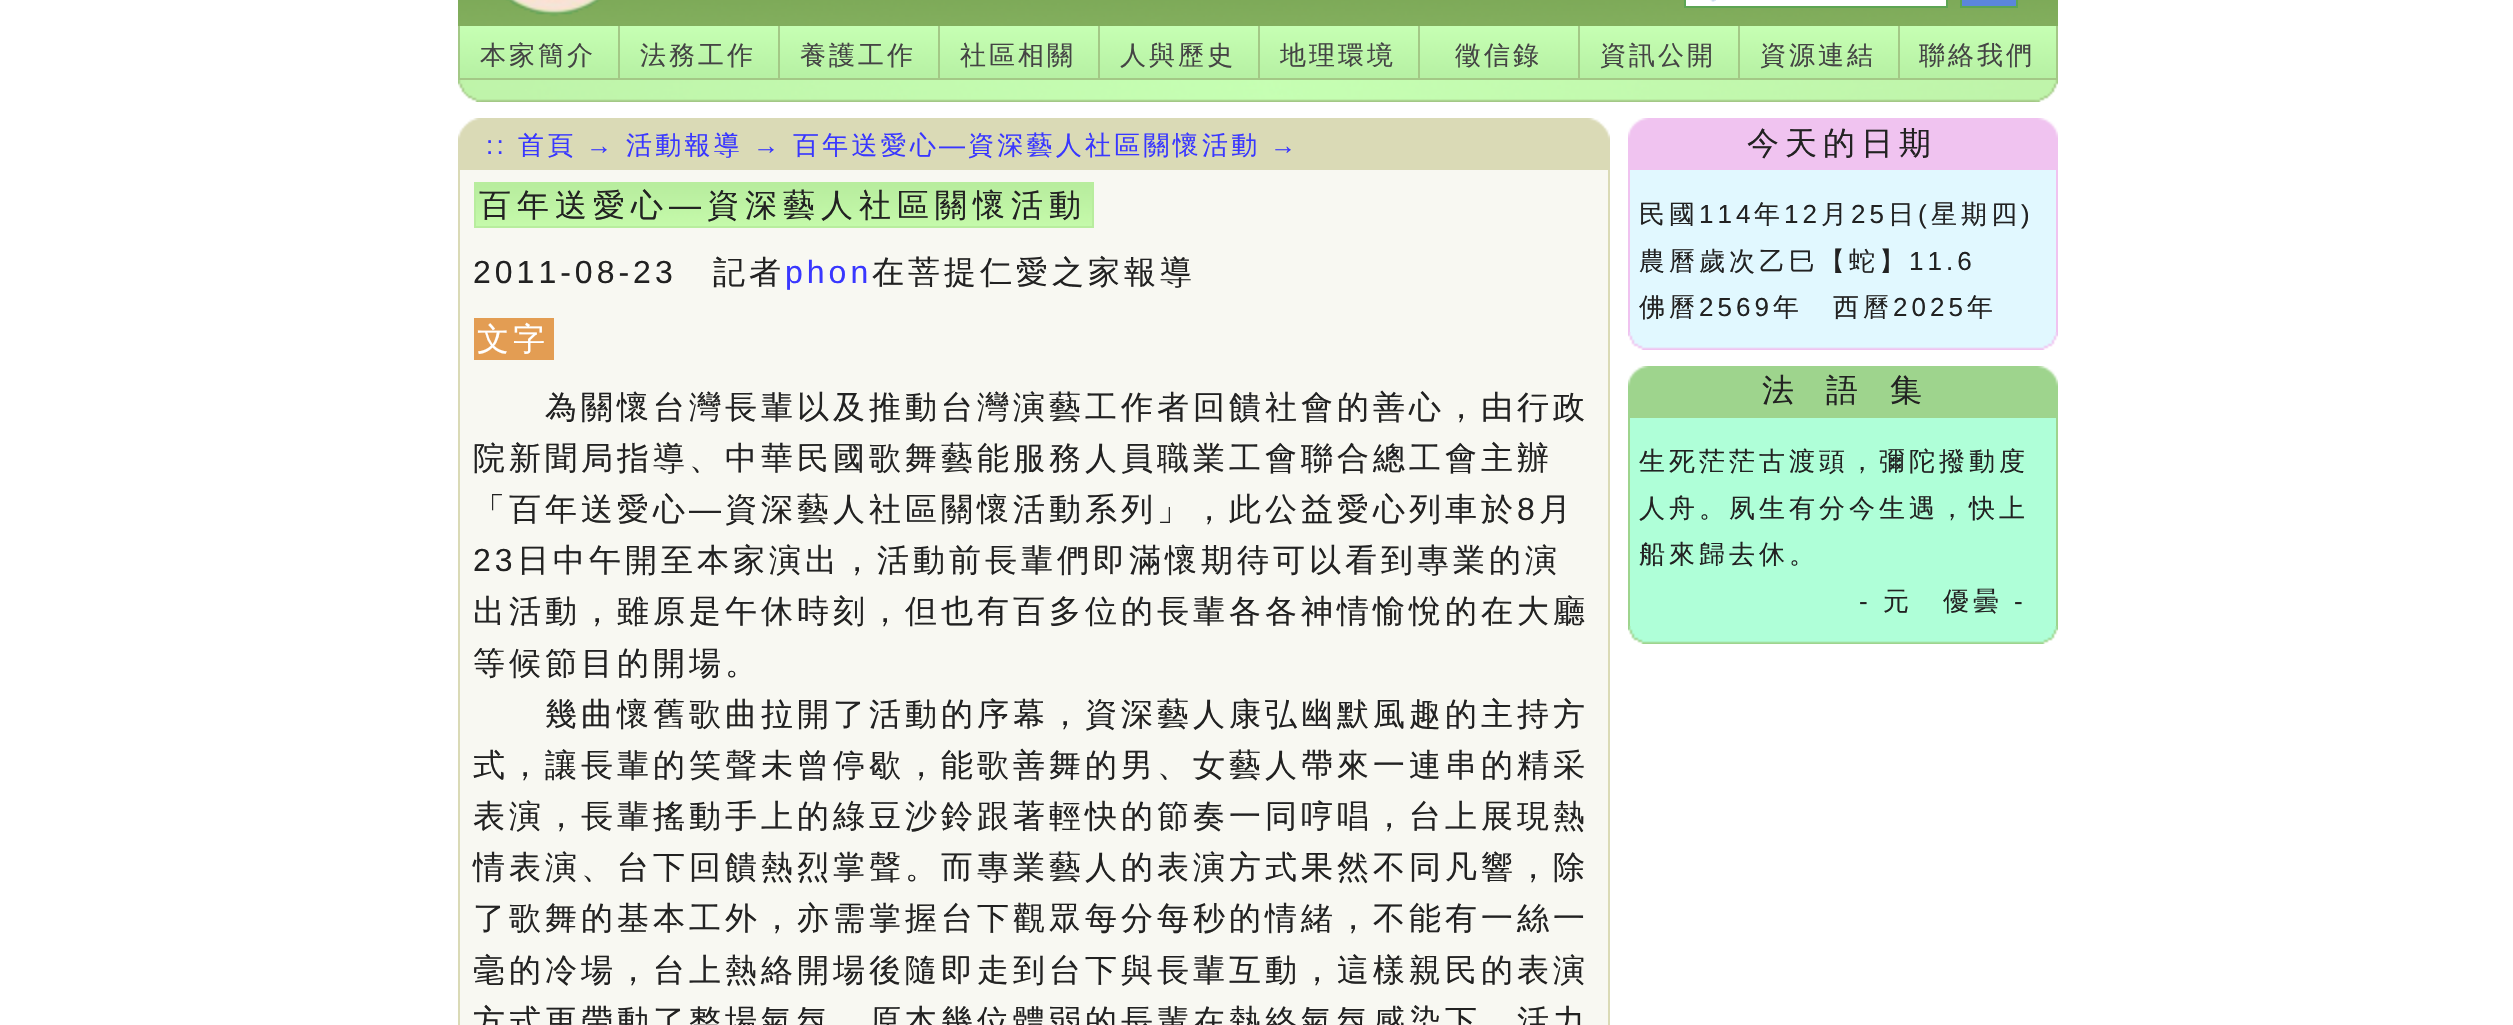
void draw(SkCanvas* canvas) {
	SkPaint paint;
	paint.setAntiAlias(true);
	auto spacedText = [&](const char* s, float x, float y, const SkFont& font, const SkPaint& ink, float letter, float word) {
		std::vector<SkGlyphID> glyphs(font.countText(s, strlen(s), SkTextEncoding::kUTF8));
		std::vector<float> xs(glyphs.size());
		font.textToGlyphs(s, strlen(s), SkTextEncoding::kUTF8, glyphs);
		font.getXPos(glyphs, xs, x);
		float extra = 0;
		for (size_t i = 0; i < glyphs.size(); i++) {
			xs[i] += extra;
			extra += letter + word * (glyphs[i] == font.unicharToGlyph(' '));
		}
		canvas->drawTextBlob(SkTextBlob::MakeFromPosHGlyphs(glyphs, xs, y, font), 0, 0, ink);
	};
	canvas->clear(0xffffffff);
	canvas->drawImageRect(SkImages::DeferredFromEncodedData(SkData::MakeFromFileName("img1.png")), SkRect::MakeXYWH(458, 0, 1600, 26), SkSamplingOptions());
	paint.setColor(0xffffffff);
	canvas->drawRect(SkRect::MakeXYWH(1684, 0, 264, 6), paint);
	canvas->drawImageRect(SkImages::DeferredFromEncodedData(SkData::MakeFromFileName("img2.png")), SkRect::MakeXYWH(1710, 0, 6, 2), SkSamplingOptions());
	paint.setStroke(true);
	paint.setStrokeWidth(2);
	paint.setColor(0xff5da553);
	canvas->drawRect(SkRect::MakeXYWH(1685, -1, 262, 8), paint);
	paint.setStroke(false);
	paint.setColor(0xff5b86dc);
	canvas->drawRect(SkRect::MakeXYWH(1961, -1, 56, 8), paint);
	paint.setStroke(true);
	paint.setColor(0xff5da553);
	canvas->drawRect(SkRect::MakeXYWH(1961, -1, 56, 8), paint);
	canvas->drawImageRect(SkImages::DeferredFromEncodedData(SkData::MakeFromFileName("img3.png")), SkRect::MakeXYWH(460, 26, 158, 52), SkSamplingOptions());
	paint.setStroke(false);
	paint.setColor(0xffa3c886);
	canvas->drawRect(SkRect::MakeXYWH(458, 78, 1440, 2), paint);
	canvas->drawRect(SkRect::MakeXYWH(458, 26, 2, 54), paint);
	SkFont f1(fontMgr->matchFamilyStyle("WenQuanYi Zen Hei", SkFontStyle(500, SkFontStyle::kNormal_Width, SkFontStyle::kUpright_Slant)), 26);
	f1.setSubpixel(true);
	paint.setColor(0xff444444);
	spacedText("本家簡介", 480, 64, f1, paint, 3, 0);
	canvas->drawImageRect(SkImages::DeferredFromEncodedData(SkData::MakeFromFileName("img3.png")), SkRect::MakeXYWH(620, 26, 158, 52), SkSamplingOptions());
	paint.setColor(0xffa3c886);
	canvas->drawRect(SkRect::MakeXYWH(618, 26, 2, 54), paint);
	paint.setColor(0xff444444);
	spacedText("法務工作", 640, 64, f1, paint, 3, 0);
	canvas->drawImageRect(SkImages::DeferredFromEncodedData(SkData::MakeFromFileName("img3.png")), SkRect::MakeXYWH(780, 26, 158, 52), SkSamplingOptions());
	paint.setColor(0xffa3c886);
	canvas->drawRect(SkRect::MakeXYWH(778, 26, 2, 54), paint);
	paint.setColor(0xff444444);
	spacedText("養護工作", 800, 64, f1, paint, 3, 0);
	canvas->drawImageRect(SkImages::DeferredFromEncodedData(SkData::MakeFromFileName("img3.png")), SkRect::MakeXYWH(940, 26, 158, 52), SkSamplingOptions());
	paint.setColor(0xffa3c886);
	canvas->drawRect(SkRect::MakeXYWH(938, 26, 2, 54), paint);
	paint.setColor(0xff444444);
	spacedText("社區相關", 960, 64, f1, paint, 3, 0);
	canvas->drawImageRect(SkImages::DeferredFromEncodedData(SkData::MakeFromFileName("img3.png")), SkRect::MakeXYWH(1100, 26, 158, 52), SkSamplingOptions());
	paint.setColor(0xffa3c886);
	canvas->drawRect(SkRect::MakeXYWH(1098, 26, 2, 54), paint);
	paint.setColor(0xff444444);
	spacedText("人與歷史", 1120, 64, f1, paint, 3, 0);
	canvas->drawImageRect(SkImages::DeferredFromEncodedData(SkData::MakeFromFileName("img3.png")), SkRect::MakeXYWH(1260, 26, 158, 52), SkSamplingOptions());
	paint.setColor(0xffa3c886);
	canvas->drawRect(SkRect::MakeXYWH(1258, 26, 2, 54), paint);
	paint.setColor(0xff444444);
	spacedText("地理環境", 1280, 64, f1, paint, 3, 0);
	canvas->drawImageRect(SkImages::DeferredFromEncodedData(SkData::MakeFromFileName("img3.png")), SkRect::MakeXYWH(1420, 26, 158, 52), SkSamplingOptions());
	paint.setColor(0xffa3c886);
	canvas->drawRect(SkRect::MakeXYWH(1418, 26, 2, 54), paint);
	paint.setColor(0xff444444);
	spacedText("徵信錄", 1455, 64, f1, paint, 3, 0);
	canvas->drawImageRect(SkImages::DeferredFromEncodedData(SkData::MakeFromFileName("img3.png")), SkRect::MakeXYWH(1580, 26, 158, 52), SkSamplingOptions());
	paint.setColor(0xffa3c886);
	canvas->drawRect(SkRect::MakeXYWH(1578, 26, 2, 54), paint);
	paint.setColor(0xff444444);
	spacedText("資訊公開", 1600, 64, f1, paint, 3, 0);
	canvas->drawImageRect(SkImages::DeferredFromEncodedData(SkData::MakeFromFileName("img3.png")), SkRect::MakeXYWH(1740, 26, 158, 52), SkSamplingOptions());
	paint.setColor(0xffa3c886);
	canvas->drawRect(SkRect::MakeXYWH(1738, 26, 2, 54), paint);
	paint.setColor(0xff444444);
	spacedText("資源連結", 1760, 64, f1, paint, 3, 0);
	canvas->drawImageRect(SkImages::DeferredFromEncodedData(SkData::MakeFromFileName("img4.png")), SkRect::MakeXYWH(1900, 26, 156, 52), SkSamplingOptions());
	paint.setColor(0xffa3c886);
	canvas->drawRect(SkRect::MakeXYWH(2056, 26, 2, 54), paint);
	canvas->drawRect(SkRect::MakeXYWH(1898, 78, 160, 2), paint);
	canvas->drawRect(SkRect::MakeXYWH(1898, 26, 2, 54), paint);
	paint.setColor(0xff444444);
	spacedText("聯絡我們", 1919, 64, f1, paint, 3, 0);
	canvas->drawImageRect(SkImages::DeferredFromEncodedData(SkData::MakeFromFileName("img5.png")), SkRect::MakeXYWH(458, 80, 1600, 22), SkSamplingOptions());
	canvas->drawImageRect(SkImages::DeferredFromEncodedData(SkData::MakeFromFileName("img6.png")), SkRect::MakeXYWH(458, 118, 1152, 52), SkSamplingOptions());
	SkFont f2(fontMgr->matchFamilyStyle("Liberation Sans", SkFontStyle::Normal()), 26);
	f2.setSubpixel(true);
	paint.setColor(0xff3937ff);
	spacedText("::", 486, 154, f2, paint, 3.25, 0);
	spacedText("首頁", 518, 154, f1, paint, 3.25, 0);
	spacedText("→", 586, 154, f2, paint, 3.25, 0);
	spacedText("活動報導", 626, 154, f1, paint, 3.25, 0);
	spacedText("→", 753, 154, f2, paint, 3.25, 0);
	spacedText("百年送愛心", 793, 154, f1, paint, 3.25, 0);
	spacedText("—", 939, 154, f2, paint, 3.25, 0);
	spacedText("資深藝人社區關懷活動", 968, 154, f1, paint, 3.25, 0);
	spacedText("→", 1270, 154, f2, paint, 3.25, 0);
	paint.setColor(0xfff8f8f2);
	canvas->drawRect(SkRect::MakeXYWH(460, 170, 1148, 855), paint);
	paint.setColor(0xffdadab6);
	canvas->drawRect(SkRect::MakeXYWH(1608, 170, 2, 855), paint);
	canvas->drawRect(SkRect::MakeXYWH(458, 170, 2, 855), paint);
	canvas->drawImageRect(SkImages::DeferredFromEncodedData(SkData::MakeFromFileName("img7.png")), SkRect::MakeXYWH(476, 184, 616, 42), SkSamplingOptions());
	paint.setStroke(true);
	paint.setColor(0xffb8ed9e);
	canvas->drawRect(SkRect::MakeXYWH(475, 183, 618, 44), paint);
	SkFont f3(fontMgr->matchFamilyStyle("WenQuanYi Zen Hei", SkFontStyle(500, SkFontStyle::kNormal_Width, SkFontStyle::kUpright_Slant)), 32);
	f3.setSubpixel(true);
	paint.setStroke(false);
	paint.setColor(0xff222222);
	spacedText("百年送愛心", 479, 216, f3, paint, 6, 0);
	SkFont f4(fontMgr->matchFamilyStyle("Liberation Sans", SkFontStyle::Normal()), 32);
	f4.setSubpixel(true);
	spacedText("—", 669, 216, f4, paint, 6, 0);
	spacedText("資深藝人社區關懷活動", 707, 216, f3, paint, 6, 0);
	spacedText("2011-08-23", 473, 283, f4, paint, 4, 0);
	spacedText("記者", 713, 283, f3, paint, 4, 0);
	paint.setColor(0xff3937ff);
	spacedText("phon", 785, 283, f4, paint, 4, 0);
	paint.setColor(0xff222222);
	spacedText("在菩提仁愛之家報導", 872, 283, f3, paint, 4, 0);
	paint.setColor(0xffe39d53);
	canvas->drawRect(SkRect::MakeXYWH(474, 318, 80, 42), paint);
	paint.setColor(0xffffffff);
	spacedText("文字", 477, 350, f3, paint, 4, 0);
	paint.setColor(0xff222222);
	spacedText("為關懷台灣長輩以及推動台灣演藝工作者回饋社會的善心，由行政", 545, 418, f3, paint, 4, 0);
	spacedText("院新聞局指導、中華民國歌舞藝能服務人員職業工會聯合總工會主辦", 473, 469, f3, paint, 4, 0);
	spacedText("「百年送愛心", 473, 520, f3, paint, 4, 0);
	spacedText("—", 689, 520, f4, paint, 4, 0);
	spacedText("資深藝人社區關懷活動系列」，此公益愛心列車於", 725, 520, f3, paint, 4, 0);
	spacedText("8", 1517, 520, f4, paint, 4, 0);
	spacedText("月", 1539, 520, f3, paint, 4, 0);
	spacedText("23", 473, 571, f4, paint, 4, 0);
	spacedText("日中午開至本家演出，活動前長輩們即滿懷期待可以看到專業的演", 517, 571, f3, paint, 4, 0);
	spacedText("出活動，雖原是午休時刻，但也有百多位的長輩各各神情愉悅的在大廳", 473, 622, f3, paint, 4, 0);
	spacedText("等候節目的開場。", 473, 674, f3, paint, 4, 0);
	spacedText("幾曲懷舊歌曲拉開了活動的序幕，資深藝人康弘幽默風趣的主持方", 545, 725, f3, paint, 4, 0);
	spacedText("式，讓長輩的笑聲未曾停歇，能歌善舞的男、女藝人帶來一連串的精采", 473, 776, f3, paint, 4, 0);
	spacedText("表演，長輩搖動手上的綠豆沙鈴跟著輕快的節奏一同哼唱，台上展現熱", 473, 827, f3, paint, 4, 0);
	spacedText("情表演、台下回饋熱烈掌聲。而專業藝人的表演方式果然不同凡響，除", 473, 878, f3, paint, 4, 0);
	spacedText("了歌舞的基本工外，亦需掌握台下觀眾每分每秒的情緒，不能有一絲一", 473, 929, f3, paint, 4, 0);
	spacedText("毫的冷場，台上熱絡開場後隨即走到台下與長輩互動，這樣親民的表演", 473, 981, f3, paint, 4, 0);
	spacedText("方式更帶動了整場氣氛，原本幾位體弱的長輩在熱絡氣氛感染下，活力", 473, 1032, f3, paint, 4, 0);
	canvas->drawImageRect(SkImages::DeferredFromEncodedData(SkData::MakeFromFileName("img8.png")), SkRect::MakeXYWH(1628, 118, 430, 52), SkSamplingOptions());
	spacedText("今天的日期", 1747, 154, f3, paint, 6, 0);
	paint.setColor(0xffe1f8ff);
	canvas->drawRect(SkRect::MakeXYWH(1630, 170, 426, 162), paint);
	paint.setColor(0xfff0c3f0);
	canvas->drawRect(SkRect::MakeXYWH(2056, 170, 2, 162), paint);
	canvas->drawRect(SkRect::MakeXYWH(1628, 170, 2, 162), paint);
	paint.setColor(0xff222222);
	spacedText("民國", 1639, 223, f1, paint, 4, 0);
	spacedText("114", 1699, 223, f2, paint, 4, 0);
	spacedText("年", 1754, 223, f1, paint, 4, 0);
	spacedText("12", 1784, 223, f2, paint, 4, 0);
	spacedText("月", 1821, 223, f1, paint, 4, 0);
	spacedText("25", 1851, 223, f2, paint, 4, 0);
	spacedText("日", 1888, 223, f1, paint, 4, 0);
	spacedText("(", 1918, 223, f2, paint, 4, 0);
	spacedText("星期四", 1931, 223, f1, paint, 4, 0);
	spacedText(")", 2021, 223, f2, paint, 4, 0);
	spacedText("農曆歲次乙巳【蛇】", 1639, 270, f1, paint, 4, 0);
	spacedText("11.6", 1909, 270, f2, paint, 4, 0);
	spacedText("佛曆", 1639, 316, f1, paint, 4, 0);
	spacedText("2569", 1699, 316, f2, paint, 4, 0);
	spacedText("年　西曆", 1773, 316, f1, paint, 4, 0);
	spacedText("2025", 1893, 316, f2, paint, 4, 0);
	spacedText("年", 1967, 316, f1, paint, 4, 0);
	canvas->drawImageRect(SkImages::DeferredFromEncodedData(SkData::MakeFromFileName("img9.png")), SkRect::MakeXYWH(1628, 332, 430, 18), SkSamplingOptions());
	canvas->drawImageRect(SkImages::DeferredFromEncodedData(SkData::MakeFromFileName("img10.png")), SkRect::MakeXYWH(1628, 366, 430, 52), SkSamplingOptions());
	canvas->drawString("法　語　集", 1762, 401, f3, paint);
	paint.setColor(0xffafffd8);
	canvas->drawRect(SkRect::MakeXYWH(1630, 418, 426, 208), paint);
	paint.setColor(0xff9ed48d);
	canvas->drawRect(SkRect::MakeXYWH(2056, 418, 2, 208), paint);
	canvas->drawRect(SkRect::MakeXYWH(1628, 418, 2, 208), paint);
	paint.setColor(0xff222222);
	spacedText("生死茫茫古渡頭，彌陀撥動度", 1639, 470, f1, paint, 4, 0);
	spacedText("人舟。夙生有分今生遇，快上", 1639, 517, f1, paint, 4, 0);
	spacedText("船來歸去休。", 1639, 563, f1, paint, 4, 0);
	spacedText("-", 1859, 610, f2, paint, 4, 0);
	spacedText("元　優曇", 1883, 610, f1, paint, 4, 0);
	spacedText("-", 2014, 610, f2, paint, 4, 0);
	canvas->drawImageRect(SkImages::DeferredFromEncodedData(SkData::MakeFromFileName("img11.png")), SkRect::MakeXYWH(1628, 626, 430, 18), SkSamplingOptions());
}
